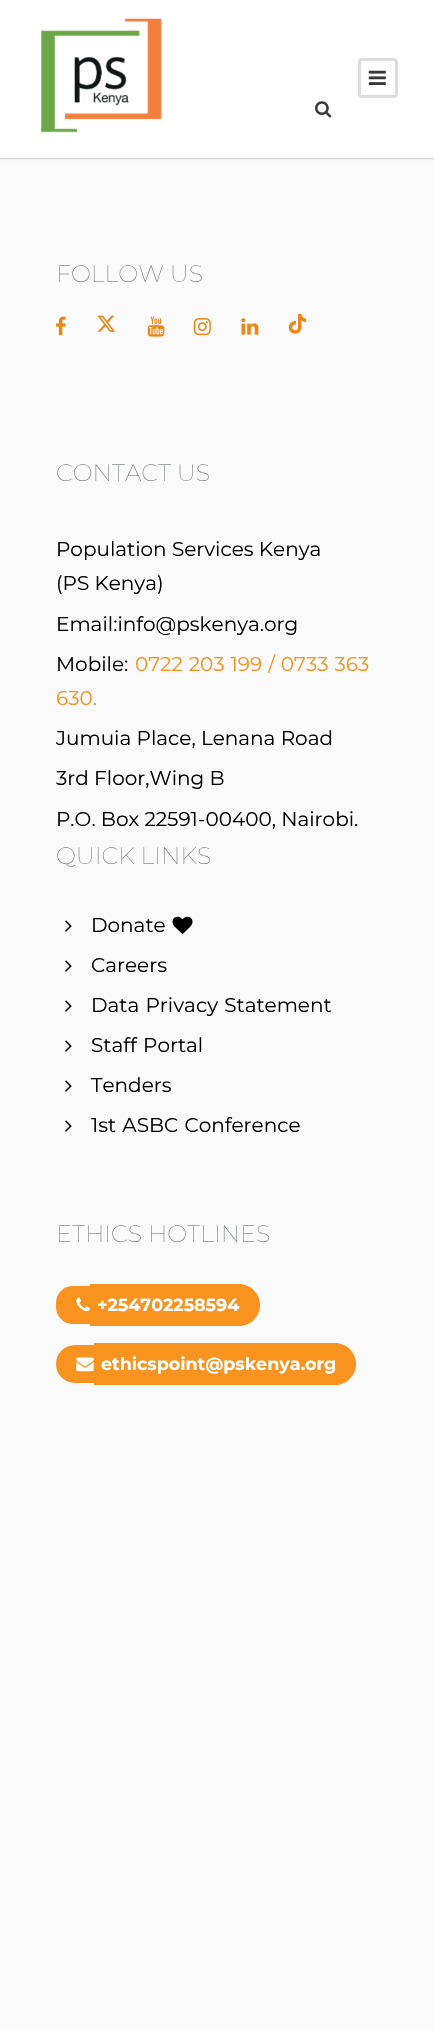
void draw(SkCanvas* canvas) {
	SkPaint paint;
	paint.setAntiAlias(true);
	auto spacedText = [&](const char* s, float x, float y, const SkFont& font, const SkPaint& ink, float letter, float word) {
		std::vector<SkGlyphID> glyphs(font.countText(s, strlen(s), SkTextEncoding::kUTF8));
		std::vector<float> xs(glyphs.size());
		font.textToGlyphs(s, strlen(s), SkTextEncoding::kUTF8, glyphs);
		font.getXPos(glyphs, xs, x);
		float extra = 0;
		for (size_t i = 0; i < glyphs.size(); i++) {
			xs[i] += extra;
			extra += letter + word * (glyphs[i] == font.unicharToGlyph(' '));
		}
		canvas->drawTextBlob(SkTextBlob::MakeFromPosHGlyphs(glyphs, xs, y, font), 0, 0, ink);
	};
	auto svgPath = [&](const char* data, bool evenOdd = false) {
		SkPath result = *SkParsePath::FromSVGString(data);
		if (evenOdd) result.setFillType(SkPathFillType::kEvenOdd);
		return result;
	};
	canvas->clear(0xfffafafa);
	paint.setColor(0xffe2e2e2);
	canvas->drawRect(SkRect::MakeXYWH(0, 158, 434, 1), paint);
	paint.setColor(0x1a000000);
	paint.setMaskFilter(SkMaskFilter::MakeBlur(kNormal_SkBlurStyle, 1));
	canvas->drawRect(SkRect::MakeXYWH(0, 1, 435, 158), paint);
	paint.setMaskFilter(nullptr);
	paint.setColor(0xffffffff);
	canvas->drawRect(SkRect::MakeXYWH(0, 0, 434, 158), paint);
	canvas->drawImageRect(SkImages::DeferredFromEncodedData(SkData::MakeFromFileName("img1.png")), SkRect::MakeXYWH(41, 18, 121, 115), SkSamplingOptions());
	paint.setStroke(true);
	paint.setStrokeWidth(3);
	paint.setColor(0xffdddddd);
	canvas->drawRoundRect(SkRect::MakeXYWH(359.5, 59.5, 37, 37), 2.5, 2.5, paint);
	canvas->drawImageRect(SkImages::DeferredFromEncodedData(SkData::MakeFromFileName("img2.png")), SkRect::MakeXYWH(368, 70, 18, 15), SkSamplingOptions());
	canvas->drawImageRect(SkImages::DeferredFromEncodedData(SkData::MakeFromFileName("img3.png")), SkRect::MakeXYWH(315, 101, 17, 17), SkSamplingOptions());
	SkFont f1(fontMgr->matchFamilyStyle("Montserrat", SkFontStyle(100, SkFontStyle::kNormal_Width, SkFontStyle::kUpright_Slant)), 23.75);
	f1.setSubpixel(true);
	paint.setStroke(false);
	paint.setColor(0xff6b7073);
	canvas->drawString("FOLLOW US", 56, 282, f1, paint);
	canvas->drawImageRect(SkImages::DeferredFromEncodedData(SkData::MakeFromFileName("img4.png")), SkRect::MakeXYWH(56, 316, 10, 20), SkSamplingOptions());
	canvas->drawImageRect(SkImages::DeferredFromEncodedData(SkData::MakeFromFileName("img5.png")), SkRect::MakeXYWH(97, 315, 19, 17), SkSamplingOptions());
	canvas->drawImageRect(SkImages::DeferredFromEncodedData(SkData::MakeFromFileName("img6.png")), SkRect::MakeXYWH(147, 316, 18, 21), SkSamplingOptions());
	canvas->drawImageRect(SkImages::DeferredFromEncodedData(SkData::MakeFromFileName("img7.png")), SkRect::MakeXYWH(193, 318, 18, 18), SkSamplingOptions());
	canvas->drawImageRect(SkImages::DeferredFromEncodedData(SkData::MakeFromFileName("img8.png")), SkRect::MakeXYWH(241, 318, 18, 17), SkSamplingOptions());
	canvas->drawImageRect(SkImages::DeferredFromEncodedData(SkData::MakeFromFileName("img9.png")), SkRect::MakeXYWH(289, 314, 17, 20), SkSamplingOptions());
	canvas->drawString("CONTACT US", 56, 481, f1, paint);
	SkFont f2(fontMgr->matchFamilyStyle("Montserrat", SkFontStyle::Normal()), 20);
	f2.setSubpixel(true);
	paint.setColor(0xff000000);
	canvas->drawString("Population Services Kenya", 56, 556, f2, paint);
	canvas->drawString("(PS Kenya)", 56, 590, f2, paint);
	canvas->drawString("Email:info@pskenya.org", 56, 631, f2, paint);
	canvas->drawString("Mobile:", 56, 671, f2, paint);
	paint.setColor(0xfff7931d);
	spacedText("0722 203 199 / 0733 363", 135, 671, f2, paint, 0, 0.75);
	canvas->drawString("630.", 56, 705, f2, paint);
	paint.setColor(0xff000000);
	canvas->drawString("Jumuia Place, Lenana Road", 56, 745, f2, paint);
	canvas->drawString("3rd Floor,Wing B", 56, 785, f2, paint);
	canvas->drawString("P.O. Box 22591-00400, Nairobi.", 56, 826, f2, paint);
	paint.setColor(0xff6b7073);
	canvas->drawString("QUICK LINKS", 56, 864, f1, paint);
	canvas->drawImageRect(SkImages::DeferredFromEncodedData(SkData::MakeFromFileName("img10.png")), SkRect::MakeXYWH(65, 920, 7, 12), SkSamplingOptions());
	paint.setColor(0xff000000);
	canvas->drawString("Donate", 91, 932, f2, paint);
	canvas->drawImageRect(SkImages::DeferredFromEncodedData(SkData::MakeFromFileName("img11.png")), SkRect::MakeXYWH(172, 916, 21, 18), SkSamplingOptions());
	canvas->drawImageRect(SkImages::DeferredFromEncodedData(SkData::MakeFromFileName("img10.png")), SkRect::MakeXYWH(65, 960, 7, 12), SkSamplingOptions());
	canvas->drawString("Careers", 91, 972, f2, paint);
	canvas->drawImageRect(SkImages::DeferredFromEncodedData(SkData::MakeFromFileName("img10.png")), SkRect::MakeXYWH(65, 1000, 7, 12), SkSamplingOptions());
	spacedText("Data Privacy Statement", 91, 1012, f2, paint, 0, 1);
	canvas->drawImageRect(SkImages::DeferredFromEncodedData(SkData::MakeFromFileName("img10.png")), SkRect::MakeXYWH(65, 1040, 7, 12), SkSamplingOptions());
	spacedText("Staff Portal", 91, 1052, f2, paint, 0, 1);
	canvas->drawImageRect(SkImages::DeferredFromEncodedData(SkData::MakeFromFileName("img10.png")), SkRect::MakeXYWH(65, 1080, 7, 12), SkSamplingOptions());
	canvas->drawString("Tenders", 91, 1092, f2, paint);
	canvas->drawImageRect(SkImages::DeferredFromEncodedData(SkData::MakeFromFileName("img10.png")), SkRect::MakeXYWH(65, 1120, 7, 12), SkSamplingOptions());
	spacedText("1st ASBC Conference", 91, 1132, f2, paint, 0, 1);
	paint.setColor(0xff6b7073);
	canvas->drawString("ETHICS HOTLINES", 56, 1242, f1, paint);
	paint.setColor(0xfff7931e);
	canvas->drawPath(svgPath("M73 1286H90V1324H73C63.5 1324 56 1316.5 56 1307V1303C56 1293.5 63.5 1286 73 1286Z"), paint);
	canvas->drawPath(svgPath("M90 1284H239C250.5 1284 260 1293.5 260 1305C260 1316.5 250.5 1326 239 1326H90Z"), paint);
	canvas->drawImageRect(SkImages::DeferredFromEncodedData(SkData::MakeFromFileName("img12.png")), SkRect::MakeXYWH(76, 1297, 14, 15), SkSamplingOptions());
	SkFont f3(fontMgr->matchFamilyStyle("Montserrat", SkFontStyle::Bold()), 17.5);
	f3.setSubpixel(true);
	paint.setColor(0xffffffff);
	canvas->drawString("+254702258594", 97, 1311, f3, paint);
	paint.setColor(0xfff7931e);
	canvas->drawPath(svgPath("M75 1345H94V1383H75C64.5 1383 56 1374.5 56 1364C56 1353.5 64.5 1345 75 1345Z"), paint);
	canvas->drawPath(svgPath("M94 1343H335C346.5 1343 356 1352.5 356 1364C356 1375.5 346.5 1385 335 1385H94Z"), paint);
	canvas->drawImageRect(SkImages::DeferredFromEncodedData(SkData::MakeFromFileName("img13.png")), SkRect::MakeXYWH(76, 1357, 18, 15), SkSamplingOptions());
	paint.setColor(0xffffffff);
	canvas->drawString("ethicspoint@pskenya.org", 101, 1370, f3, paint);
}
